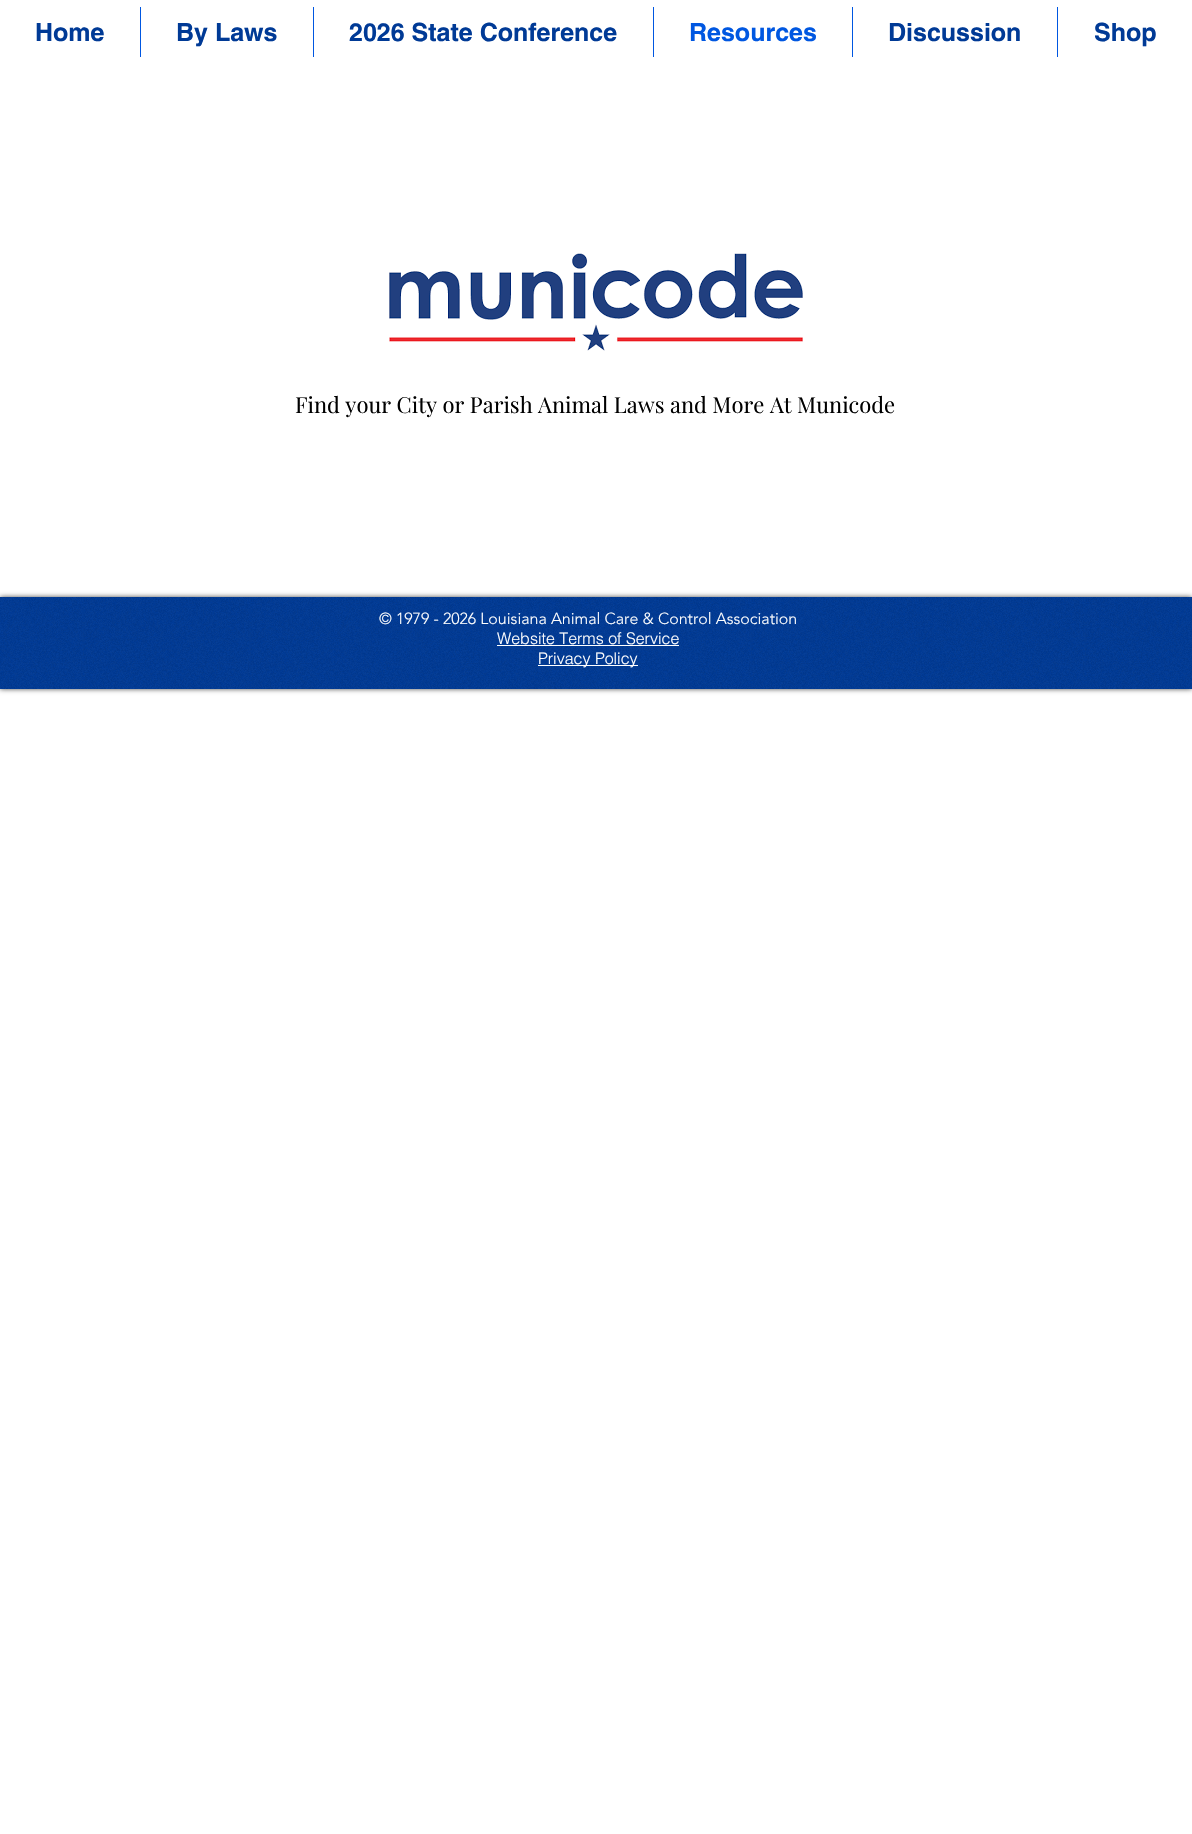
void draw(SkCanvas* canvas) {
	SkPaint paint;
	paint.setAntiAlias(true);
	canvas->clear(0xffffffff);
	SkFont f1(fontMgr->matchFamilyStyle("helvetica", SkFontStyle::Bold()), 25);
	f1.setSubpixel(true);
	paint.setColor(0xff003a96);
	canvas->drawString("Home", 35, 41, f1, paint);
	paint.setColor(0xff0057e1);
	canvas->drawRect(SkRect::MakeXYWH(140, 7, 1, 50), paint);
	paint.setColor(0xff003a96);
	canvas->drawString("By Laws", 176, 41, f1, paint);
	paint.setColor(0xff0057e1);
	canvas->drawRect(SkRect::MakeXYWH(313, 7, 1, 50), paint);
	paint.setColor(0xff003a96);
	canvas->drawString("2026 State Conference", 349, 41, f1, paint);
	paint.setColor(0xff0057e1);
	canvas->drawRect(SkRect::MakeXYWH(653, 7, 1, 50), paint);
	canvas->drawString("Resources", 689, 41, f1, paint);
	canvas->drawRect(SkRect::MakeXYWH(852, 7, 1, 50), paint);
	paint.setColor(0xff003a96);
	canvas->drawString("Discussion", 888, 41, f1, paint);
	paint.setColor(0xff0057e1);
	canvas->drawRect(SkRect::MakeXYWH(1057, 7, 1, 50), paint);
	paint.setColor(0xff003a96);
	canvas->drawString("Shop", 1094, 41, f1, paint);
	canvas->drawImageRect(SkImages::DeferredFromEncodedData(SkData::MakeFromFileName("img1.png")), SkRect::MakeXYWH(389, 253, 414, 98), SkSamplingOptions());
	SkFont f2(fontMgr->matchFamilyStyle("Playfair Display", SkFontStyle::Normal()), 22);
	f2.setSubpixel(true);
	paint.setColor(0xff000000);
	canvas->drawString("Find your City or Parish Animal Laws and More At Municode", 295, 413, f2, paint);
	paint.setColor(0xb3000000);
	paint.setMaskFilter(SkMaskFilter::MakeBlur(kNormal_SkBlurStyle, 2.5));
	canvas->drawRect(SkRect::MakeXYWH(0, 597, 1192, 92), paint);
	paint.setMaskFilter(nullptr);
	paint.setColor(0xff003a96);
	canvas->drawRect(SkRect::MakeXYWH(0, 597, 1192, 92), paint);
	canvas->drawImageRect(SkImages::DeferredFromEncodedData(SkData::MakeFromFileName("img2.png")), SkRect::MakeXYWH(0, 597, 1192, 92), SkSamplingOptions());
	SkFont f3(fontMgr->matchFamilyStyle("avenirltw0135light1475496", SkFontStyle(300, SkFontStyle::kNormal_Width, SkFontStyle::kUpright_Slant)), 16);
	f3.setSubpixel(true);
	paint.setColor(0xffffffff);
	canvas->drawString("© 1979 - 2026 Louisiana Animal Care & Control Association", 379, 624, f3, paint);
	SkFont f4(fontMgr->matchFamilyStyle("helvetica", SkFontStyle(300, SkFontStyle::kNormal_Width, SkFontStyle::kUpright_Slant)), 16);
	f4.setSubpixel(true);
	canvas->drawString("Website Terms of Service", 497, 644, f4, paint);
	canvas->drawRect(SkRect::MakeXYWH(497, 645, 182, 1), paint);
	canvas->drawRect(SkRect::MakeXYWH(538, 665, 100, 1), paint);
	canvas->drawString("Privacy Policy", 538, 664, f4, paint);
}
